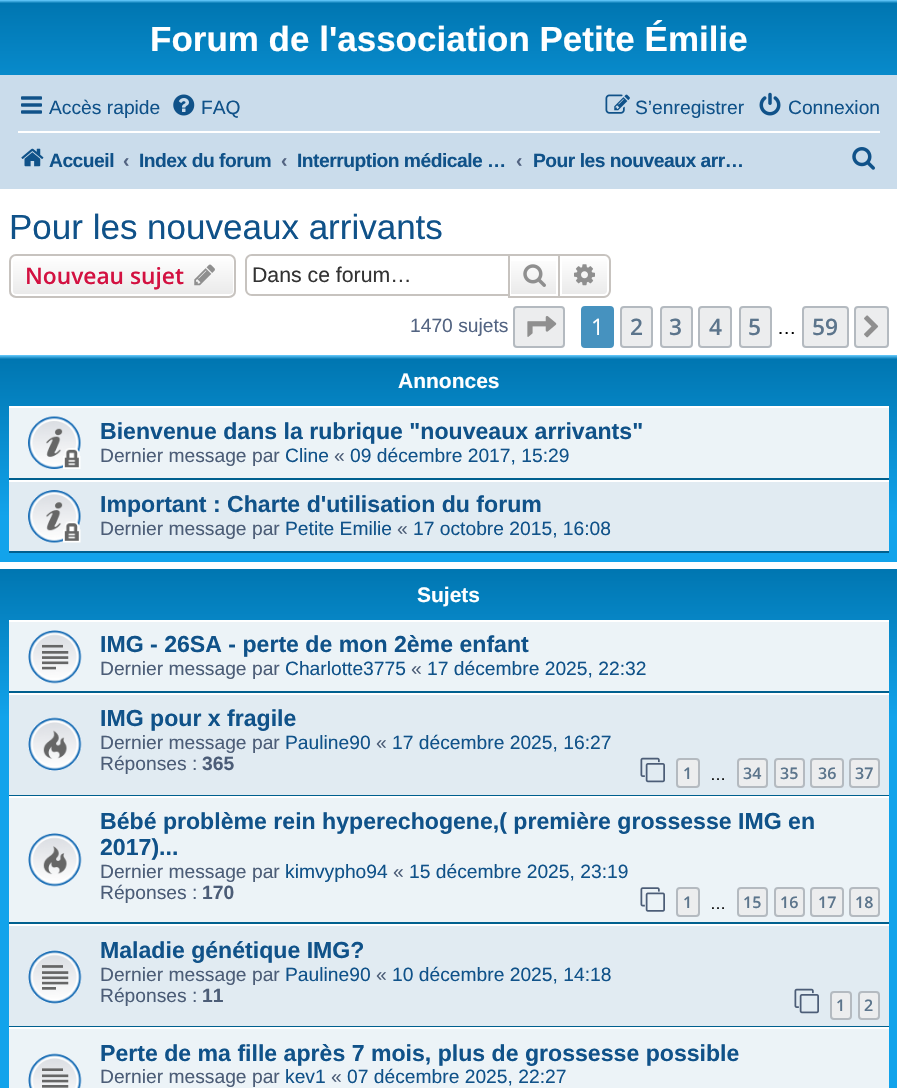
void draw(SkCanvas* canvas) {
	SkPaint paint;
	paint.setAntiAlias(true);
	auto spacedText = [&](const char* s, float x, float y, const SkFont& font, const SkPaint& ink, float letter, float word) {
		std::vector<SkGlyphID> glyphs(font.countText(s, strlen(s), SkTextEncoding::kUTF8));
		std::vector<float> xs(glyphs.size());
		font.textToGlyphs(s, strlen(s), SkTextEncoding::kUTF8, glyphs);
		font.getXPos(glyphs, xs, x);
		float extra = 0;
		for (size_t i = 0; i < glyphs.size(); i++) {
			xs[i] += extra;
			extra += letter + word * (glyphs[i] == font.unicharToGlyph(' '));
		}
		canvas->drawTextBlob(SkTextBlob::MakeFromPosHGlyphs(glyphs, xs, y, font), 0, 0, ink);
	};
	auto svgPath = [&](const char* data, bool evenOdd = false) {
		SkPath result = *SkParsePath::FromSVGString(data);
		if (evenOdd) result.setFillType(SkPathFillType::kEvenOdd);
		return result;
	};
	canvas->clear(0xffffffff);
	{
		const SkColor colors[] = {0xff6aceff, 0xff0076b1, 0xff12a3eb};
		const float stops[] = {0, 0.02, 1};
		const SkPoint ends[] = {{449, 0}, {449, 161}};
		paint.setShader(SkGradientShader::MakeLinear(ends, colors, stops, 3, SkTileMode::kClamp));
		paint.setAlpha(255);
	}
	canvas->drawRect(SkRect::MakeXYWH(0, 0, 897, 75), paint);
	SkFont f1(fontMgr->matchFamilyStyle("Liberation Sans", SkFontStyle::Bold()), 35);
	f1.setSubpixel(true);
	paint.setShader(nullptr);
	paint.setColor(0xffffffff);
	canvas->drawString("Forum de l'association Petite Émilie", 150, 51, f1, paint);
	paint.setColor(0xffcadceb);
	canvas->drawRect(SkRect::MakeXYWH(0, 75, 897, 114), paint);
	canvas->drawImageRect(SkImages::DeferredFromEncodedData(SkData::MakeFromFileName("img1.png")), SkRect::MakeXYWH(21, 96, 21, 18), SkSamplingOptions());
	SkFont f2(fontMgr->matchFamilyStyle("Liberation Sans", SkFontStyle::Normal()), 19.25);
	f2.setSubpixel(true);
	paint.setColor(0xff105289);
	canvas->drawString("Accès rapide", 49, 114, f2, paint);
	canvas->drawImageRect(SkImages::DeferredFromEncodedData(SkData::MakeFromFileName("img2.png")), SkRect::MakeXYWH(173, 94, 22, 22), SkSamplingOptions());
	canvas->drawString("FAQ", 201, 114, f2, paint);
	canvas->drawImageRect(SkImages::DeferredFromEncodedData(SkData::MakeFromFileName("img3.png")), SkRect::MakeXYWH(605, 94, 25, 20), SkSamplingOptions());
	canvas->drawString("S’enregistrer", 635, 114, f2, paint);
	canvas->drawImageRect(SkImages::DeferredFromEncodedData(SkData::MakeFromFileName("img4.png")), SkRect::MakeXYWH(759, 92, 22, 24), SkSamplingOptions());
	canvas->drawString("Connexion", 788, 114, f2, paint);
	paint.setColor(0xffffffff);
	canvas->drawRect(SkRect::MakeXYWH(18, 131, 862, 2), paint);
	canvas->drawImageRect(SkImages::DeferredFromEncodedData(SkData::MakeFromFileName("img5.png")), SkRect::MakeXYWH(21, 148, 23, 19), SkSamplingOptions());
	SkFont f3(fontMgr->matchFamilyStyle("Liberation Sans", SkFontStyle::Bold()), 19.25);
	f3.setSubpixel(true);
	paint.setColor(0xff105289);
	spacedText("Accueil", 49, 167, f3, paint, -0.5, 0);
	paint.setColor(0xff536482);
	canvas->drawString("‹", 123, 167, f3, paint);
	paint.setColor(0xff105289);
	spacedText("Index du forum", 139, 167, f3, paint, -0.5, 0);
	paint.setColor(0xff536482);
	canvas->drawString("‹", 281, 167, f3, paint);
	paint.setColor(0xff105289);
	spacedText("Interruption médicale …", 297, 167, f3, paint, -0.5, 0);
	paint.setColor(0xff536482);
	canvas->drawString("‹", 516, 167, f3, paint);
	paint.setColor(0xff105289);
	spacedText("Pour les nouveaux arr…", 533, 167, f3, paint, -0.5, 0);
	canvas->drawImageRect(SkImages::DeferredFromEncodedData(SkData::MakeFromFileName("img6.png")), SkRect::MakeXYWH(852, 147, 23, 23), SkSamplingOptions());
	SkFont f4(fontMgr->matchFamilyStyle("Liberation Sans", SkFontStyle::Normal()), 35);
	f4.setSubpixel(true);
	canvas->drawString("Pour les nouveaux arrivants", 9, 239, f4, paint);
	canvas->save();
	canvas->clipPath(svgPath("M16 254H229C233 254 236 257 236 261V291C236 295 233 298 229 298H16C12 298 9 295 9 291V261C9 257 12 254 16 254Z"), true);
	{
		const SkColor colors[] = {0xffffffff, 0xffe9e9e9};
		const float stops[] = {0, 1};
		const SkPoint ends[] = {{123, 256}, {123, 296}};
		paint.setShader(SkGradientShader::MakeLinear(ends, colors, stops, 2, SkTileMode::kClamp));
		paint.setAlpha(255);
	}
	canvas->drawRect(SkRect::MakeXYWH(9, 256, 227, 40), paint);
	canvas->restore();
	paint.setStroke(true);
	paint.setStrokeWidth(2);
	paint.setShader(nullptr);
	paint.setColor(0xffffffff);
	canvas->drawRoundRect(SkRect::MakeXYWH(12, 257, 222, 38), 4, 4, paint);
	paint.setColor(0xffc7c3bf);
	canvas->drawRoundRect(SkRect::MakeXYWH(10, 255, 225, 42), 6, 6, paint);
	SkFont f5(fontMgr->matchFamilyStyle("Open Sans", SkFontStyle(600, SkFontStyle::kNormal_Width, SkFontStyle::kUpright_Slant)), 22.75);
	f5.setSubpixel(true);
	paint.setStroke(false);
	paint.setColor(0xffd31141);
	canvas->drawString("Nouveau sujet", 25, 284, f5, paint);
	canvas->drawImageRect(SkImages::DeferredFromEncodedData(SkData::MakeFromFileName("img7.png")), SkRect::MakeXYWH(194, 264, 21, 22), SkSamplingOptions());
	paint.setColor(0xffc7c3bf);
	canvas->drawPath(svgPath("M252 254H508V296H252C248 296 245 293 245 289V261C245 257 248 254 252 254ZM252 256H508V294H252C249 294 247 292 247 289V261C247 258 249 256 252 256Z", true), paint);
	SkFont f6(fontMgr->matchFamilyStyle("Liberation Sans", SkFontStyle::Normal()), 21.25);
	f6.setSubpixel(true);
	paint.setColor(0xff333333);
	canvas->drawString("Dans ce forum…", 252, 282, f6, paint);
	{
		const SkColor colors[] = {0xffffffff, 0xffe9e9e9};
		const float stops[] = {0, 1};
		const SkPoint ends[] = {{534, 256}, {534, 296}};
		paint.setShader(SkGradientShader::MakeLinear(ends, colors, stops, 2, SkTileMode::kClamp));
		paint.setAlpha(255);
	}
	canvas->drawRect(SkRect::MakeXYWH(511, 261, 45, 33), paint);
	paint.setStroke(true);
	paint.setShader(nullptr);
	paint.setColor(0xffc7c3bf);
	canvas->drawRect(SkRect::MakeXYWH(509, 255, 50, 42), paint);
	canvas->drawImageRect(SkImages::DeferredFromEncodedData(SkData::MakeFromFileName("img8.png")), SkRect::MakeXYWH(523, 264, 23, 23), SkSamplingOptions());
	paint.setStroke(false);
	{
		const SkColor colors[] = {0xffffffff, 0xffe9e9e9};
		const float stops[] = {0, 1};
		const SkPoint ends[] = {{585, 256}, {585, 296}};
		paint.setShader(SkGradientShader::MakeLinear(ends, colors, stops, 2, SkTileMode::kClamp));
		paint.setAlpha(255);
	}
	canvas->drawPath(svgPath("M561 257H604C606 257 608 259 608 261V291C608 293 606 295 604 295H561Z"), paint);
	paint.setStroke(true);
	paint.setShader(nullptr);
	paint.setColor(0xffffffff);
	canvas->drawPath(svgPath("M561 257H604C606 257 608 259 608 261V291C608 293 606 295 604 295H561Z"), paint);
	paint.setStroke(false);
	paint.setColor(0xffc7c3bf);
	canvas->drawPath(svgPath("M560 254H604C608 254 611 257 611 261V290C611 294 608 298 604 298H560ZM560 256H604C607 256 609 258 609 261V290C609 293 607 296 604 296H560Z", true), paint);
	canvas->drawImageRect(SkImages::DeferredFromEncodedData(SkData::MakeFromFileName("img9.png")), SkRect::MakeXYWH(574, 264, 21, 22), SkSamplingOptions());
	paint.setColor(0xff536482);
	canvas->drawString("1470 sujets", 410, 332, f2, paint);
	paint.setColor(0xffecedee);
	canvas->drawRoundRect(SkRect::MakeXYWH(514, 307, 50, 40), 3, 3, paint);
	paint.setStroke(true);
	paint.setColor(0xffb4bac0);
	canvas->drawRoundRect(SkRect::MakeXYWH(514, 307, 50, 40), 3, 3, paint);
	canvas->drawImageRect(SkImages::DeferredFromEncodedData(SkData::MakeFromFileName("img10.png")), SkRect::MakeXYWH(527, 316, 30, 21), SkSamplingOptions());
	paint.setStroke(false);
	paint.setColor(0xff4692bf);
	canvas->drawRoundRect(SkRect::MakeXYWH(582, 307, 31, 40), 3, 3, paint);
	paint.setStroke(true);
	canvas->drawRoundRect(SkRect::MakeXYWH(582, 307, 31, 40), 3, 3, paint);
	SkFont f7(fontMgr->matchFamilyStyle("Open Sans", SkFontStyle::Normal()), 22.75);
	f7.setSubpixel(true);
	paint.setStroke(false);
	paint.setColor(0xffffffff);
	canvas->drawString("1", 591, 335, f7, paint);
	paint.setColor(0xffecedee);
	canvas->drawRoundRect(SkRect::MakeXYWH(621, 307, 31, 40), 3, 3, paint);
	paint.setStroke(true);
	paint.setColor(0xffb4bac0);
	canvas->drawRoundRect(SkRect::MakeXYWH(621, 307, 31, 40), 3, 3, paint);
	paint.setStroke(false);
	paint.setColor(0xff5c758c);
	canvas->drawString("2", 630, 335, f5, paint);
	paint.setColor(0xffecedee);
	canvas->drawRoundRect(SkRect::MakeXYWH(661, 307, 31, 40), 3, 3, paint);
	paint.setStroke(true);
	paint.setColor(0xffb4bac0);
	canvas->drawRoundRect(SkRect::MakeXYWH(661, 307, 31, 40), 3, 3, paint);
	paint.setStroke(false);
	paint.setColor(0xff5c758c);
	canvas->drawString("3", 669, 335, f5, paint);
	paint.setColor(0xffecedee);
	canvas->drawRoundRect(SkRect::MakeXYWH(699, 307, 32, 40), 3, 3, paint);
	paint.setStroke(true);
	paint.setColor(0xffb4bac0);
	canvas->drawRoundRect(SkRect::MakeXYWH(699, 307, 32, 40), 3, 3, paint);
	paint.setStroke(false);
	paint.setColor(0xff5c758c);
	canvas->drawString("4", 709, 335, f5, paint);
	paint.setColor(0xffecedee);
	canvas->drawRoundRect(SkRect::MakeXYWH(740, 307, 31, 40), 3, 3, paint);
	paint.setStroke(true);
	paint.setColor(0xffb4bac0);
	canvas->drawRoundRect(SkRect::MakeXYWH(740, 307, 31, 40), 3, 3, paint);
	paint.setStroke(false);
	paint.setColor(0xff5c758c);
	canvas->drawString("5", 748, 335, f5, paint);
	paint.setColor(0xff000000);
	canvas->drawString("…", 777, 334, f2, paint);
	paint.setColor(0xffecedee);
	canvas->drawRoundRect(SkRect::MakeXYWH(803, 307, 45, 40), 3, 3, paint);
	paint.setStroke(true);
	paint.setColor(0xffb4bac0);
	canvas->drawRoundRect(SkRect::MakeXYWH(803, 307, 45, 40), 3, 3, paint);
	paint.setStroke(false);
	paint.setColor(0xff5c758c);
	canvas->drawString("59", 812, 335, f5, paint);
	paint.setColor(0xffecedee);
	canvas->drawRoundRect(SkRect::MakeXYWH(855, 307, 33, 40), 3, 3, paint);
	paint.setStroke(true);
	paint.setColor(0xffb4bac0);
	canvas->drawRoundRect(SkRect::MakeXYWH(855, 307, 33, 40), 3, 3, paint);
	canvas->drawImageRect(SkImages::DeferredFromEncodedData(SkData::MakeFromFileName("img11.png")), SkRect::MakeXYWH(864, 315, 15, 23), SkSamplingOptions());
	paint.setStroke(false);
	{
		const SkColor colors[] = {0xff6aceff, 0xff0076b1, 0xff12a3eb, 0xff12a3eb};
		const float stops[] = {0, 0.02, 0.78, 1};
		const SkPoint ends[] = {{449, 355}, {449, 562}};
		paint.setShader(SkGradientShader::MakeLinear(ends, colors, stops, 4, SkTileMode::kClamp));
		paint.setAlpha(255);
	}
	canvas->drawRect(SkRect::MakeXYWH(0, 355, 897, 207), paint);
	SkFont f8(fontMgr->matchFamilyStyle("Liberation Sans", SkFontStyle::Bold()), 21);
	f8.setSubpixel(true);
	paint.setShader(nullptr);
	paint.setColor(0xffffffff);
	canvas->drawString("Annonces", 398, 388, f8, paint);
	paint.setColor(0xffecf3f7);
	canvas->drawRect(SkRect::MakeXYWH(9, 408, 880, 70), paint);
	paint.setColor(0xffffffff);
	canvas->drawRect(SkRect::MakeXYWH(9, 406, 880, 2), paint);
	paint.setColor(0xff00608f);
	canvas->drawRect(SkRect::MakeXYWH(9, 478, 880, 2), paint);
	canvas->drawImageRect(SkImages::DeferredFromEncodedData(SkData::MakeFromFileName("img12.png")), SkRect::MakeXYWH(28, 416, 53, 53), SkSamplingOptions());
	SkFont f9(fontMgr->matchFamilyStyle("Liberation Sans", SkFontStyle::Bold()), 23.1);
	f9.setSubpixel(true);
	paint.setColor(0xff105289);
	canvas->drawString("Bienvenue dans la rubrique \"nouveaux arrivants\"", 100, 439, f9, paint);
	paint.setColor(0xff4c5d77);
	canvas->drawString("Dernier message par", 100, 462, f2, paint);
	paint.setColor(0xff105289);
	canvas->drawString("Cline", 285, 462, f2, paint);
	paint.setColor(0xff4c5d77);
	canvas->drawString("«", 334, 462, f2, paint);
	paint.setColor(0xff105289);
	canvas->drawString("09 décembre 2017, 15:29", 350, 462, f2, paint);
	paint.setColor(0xffe1ebf2);
	canvas->drawRect(SkRect::MakeXYWH(9, 482, 880, 69), paint);
	paint.setColor(0xffffffff);
	canvas->drawRect(SkRect::MakeXYWH(9, 480, 880, 2), paint);
	paint.setColor(0xff00608f);
	canvas->drawRect(SkRect::MakeXYWH(9, 551, 880, 2), paint);
	canvas->drawImageRect(SkImages::DeferredFromEncodedData(SkData::MakeFromFileName("img13.png")), SkRect::MakeXYWH(28, 490, 53, 53), SkSamplingOptions());
	paint.setColor(0xff105289);
	canvas->drawString("Important : Charte d'utilisation du forum", 100, 512, f9, paint);
	paint.setColor(0xff4c5d77);
	canvas->drawString("Dernier message par", 100, 535, f2, paint);
	paint.setColor(0xff105289);
	canvas->drawString("Petite Emilie", 285, 535, f2, paint);
	paint.setColor(0xff4c5d77);
	canvas->drawString("«", 397, 535, f2, paint);
	paint.setColor(0xff105289);
	canvas->drawString("17 octobre 2015, 16:08", 413, 535, f2, paint);
	{
		const SkColor colors[] = {0xff6aceff, 0xff0076b1, 0xff12a3eb, 0xff12a3eb};
		const float stops[] = {0, 0, 0.06, 1};
		const SkPoint ends[] = {{449, 569}, {449, 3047}};
		paint.setShader(SkGradientShader::MakeLinear(ends, colors, stops, 4, SkTileMode::kClamp));
		paint.setAlpha(255);
	}
	canvas->drawRect(SkRect::MakeXYWH(0, 569, 897, 519), paint);
	paint.setShader(nullptr);
	paint.setColor(0xffffffff);
	canvas->drawString("Sujets", 417, 602, f8, paint);
	paint.setColor(0xffecf3f7);
	canvas->drawRect(SkRect::MakeXYWH(9, 622, 880, 69), paint);
	paint.setColor(0xffffffff);
	canvas->drawRect(SkRect::MakeXYWH(9, 620, 880, 2), paint);
	paint.setColor(0xff00608f);
	canvas->drawRect(SkRect::MakeXYWH(9, 691, 880, 2), paint);
	canvas->drawImageRect(SkImages::DeferredFromEncodedData(SkData::MakeFromFileName("img14.png")), SkRect::MakeXYWH(28, 630, 54, 54), SkSamplingOptions());
	paint.setColor(0xff105289);
	canvas->drawString("IMG - 26SA - perte de mon 2ème enfant", 100, 652, f9, paint);
	paint.setColor(0xff4c5d77);
	canvas->drawString("Dernier message par", 100, 675, f2, paint);
	paint.setColor(0xff105289);
	canvas->drawString("Charlotte3775", 285, 675, f2, paint);
	paint.setColor(0xff4c5d77);
	canvas->drawString("«", 411, 675, f2, paint);
	paint.setColor(0xff105289);
	canvas->drawString("17 décembre 2025, 22:32", 427, 675, f2, paint);
	paint.setColor(0xffe1ebf2);
	canvas->drawRect(SkRect::MakeXYWH(9, 695, 880, 100), paint);
	paint.setColor(0xffffffff);
	canvas->drawRect(SkRect::MakeXYWH(9, 693, 880, 2), paint);
	paint.setColor(0xff00608f);
	canvas->drawRect(SkRect::MakeXYWH(9, 795, 880, 1), paint);
	canvas->drawImageRect(SkImages::DeferredFromEncodedData(SkData::MakeFromFileName("img15.png")), SkRect::MakeXYWH(28, 717, 54, 54), SkSamplingOptions());
	paint.setColor(0xff105289);
	canvas->drawString("IMG pour x fragile", 100, 726, f9, paint);
	paint.setColor(0xff4c5d77);
	canvas->drawString("Dernier message par", 100, 749, f2, paint);
	paint.setColor(0xff105289);
	canvas->drawString("Pauline90", 285, 749, f2, paint);
	paint.setColor(0xff4c5d77);
	canvas->drawString("«", 376, 749, f2, paint);
	paint.setColor(0xff105289);
	canvas->drawString("17 décembre 2025, 16:27", 392, 749, f2, paint);
	paint.setColor(0xff4c5d77);
	canvas->drawString("Réponses :", 100, 770, f2, paint);
	canvas->drawString("365", 202, 770, f3, paint);
	canvas->drawImageRect(SkImages::DeferredFromEncodedData(SkData::MakeFromFileName("img16.png")), SkRect::MakeXYWH(640, 757, 25, 26), SkSamplingOptions());
	paint.setColor(0xffecedee);
	canvas->drawRoundRect(SkRect::MakeXYWH(677, 759, 22, 28), 3, 3, paint);
	paint.setStroke(true);
	paint.setColor(0xffb4bac0);
	canvas->drawRoundRect(SkRect::MakeXYWH(677, 759, 22, 28), 3, 3, paint);
	SkFont f10(fontMgr->matchFamilyStyle("Open Sans", SkFontStyle(600, SkFontStyle::kNormal_Width, SkFontStyle::kUpright_Slant)), 16);
	f10.setSubpixel(true);
	paint.setStroke(false);
	paint.setColor(0xff5c758c);
	canvas->drawString("1", 683, 779, f10, paint);
	SkFont f11(fontMgr->matchFamilyStyle("Liberation Sans", SkFontStyle::Normal()), 16);
	f11.setSubpixel(true);
	paint.setColor(0xff000000);
	canvas->drawString("…", 710, 780, f11, paint);
	paint.setColor(0xffecedee);
	canvas->drawRoundRect(SkRect::MakeXYWH(738, 759, 29, 28), 3, 3, paint);
	paint.setStroke(true);
	paint.setColor(0xffb4bac0);
	canvas->drawRoundRect(SkRect::MakeXYWH(738, 759, 29, 28), 3, 3, paint);
	paint.setStroke(false);
	paint.setColor(0xff5c758c);
	canvas->drawString("34", 743, 779, f10, paint);
	paint.setColor(0xffecedee);
	canvas->drawRoundRect(SkRect::MakeXYWH(775, 759, 29, 28), 3, 3, paint);
	paint.setStroke(true);
	paint.setColor(0xffb4bac0);
	canvas->drawRoundRect(SkRect::MakeXYWH(775, 759, 29, 28), 3, 3, paint);
	paint.setStroke(false);
	paint.setColor(0xff5c758c);
	canvas->drawString("35", 780, 779, f10, paint);
	paint.setColor(0xffecedee);
	canvas->drawRoundRect(SkRect::MakeXYWH(811, 759, 32, 28), 3, 3, paint);
	paint.setStroke(true);
	paint.setColor(0xffb4bac0);
	canvas->drawRoundRect(SkRect::MakeXYWH(811, 759, 32, 28), 3, 3, paint);
	paint.setStroke(false);
	paint.setColor(0xff5c758c);
	canvas->drawString("36", 818, 779, f10, paint);
	paint.setColor(0xffecedee);
	canvas->drawRoundRect(SkRect::MakeXYWH(850, 759, 29, 28), 3, 3, paint);
	paint.setStroke(true);
	paint.setColor(0xffb4bac0);
	canvas->drawRoundRect(SkRect::MakeXYWH(850, 759, 29, 28), 3, 3, paint);
	paint.setStroke(false);
	paint.setColor(0xff5c758c);
	canvas->drawString("37", 855, 779, f10, paint);
	paint.setColor(0xffecf3f7);
	canvas->drawRect(SkRect::MakeXYWH(9, 798, 880, 124), paint);
	paint.setColor(0xffffffff);
	canvas->drawRect(SkRect::MakeXYWH(9, 796, 880, 2), paint);
	paint.setColor(0xff00608f);
	canvas->drawRect(SkRect::MakeXYWH(9, 922, 880, 2), paint);
	canvas->drawImageRect(SkImages::DeferredFromEncodedData(SkData::MakeFromFileName("img17.png")), SkRect::MakeXYWH(28, 833, 54, 54), SkSamplingOptions());
	paint.setColor(0xff105289);
	canvas->drawString("Bébé problème rein hyperechogene,( première grossesse IMG en", 100, 829, f9, paint);
	canvas->drawString("2017)...", 100, 855, f9, paint);
	paint.setColor(0xff4c5d77);
	canvas->drawString("Dernier message par", 100, 878, f2, paint);
	paint.setColor(0xff105289);
	canvas->drawString("kimvypho94", 285, 878, f2, paint);
	paint.setColor(0xff4c5d77);
	canvas->drawString("«", 393, 878, f2, paint);
	paint.setColor(0xff105289);
	canvas->drawString("15 décembre 2025, 23:19", 409, 878, f2, paint);
	paint.setColor(0xff4c5d77);
	canvas->drawString("Réponses :", 100, 899, f2, paint);
	canvas->drawString("170", 202, 899, f3, paint);
	canvas->drawImageRect(SkImages::DeferredFromEncodedData(SkData::MakeFromFileName("img18.png")), SkRect::MakeXYWH(640, 887, 25, 25), SkSamplingOptions());
	paint.setColor(0xffecedee);
	canvas->drawRoundRect(SkRect::MakeXYWH(677, 888, 22, 28), 3, 3, paint);
	paint.setStroke(true);
	paint.setColor(0xffb4bac0);
	canvas->drawRoundRect(SkRect::MakeXYWH(677, 888, 22, 28), 3, 3, paint);
	paint.setStroke(false);
	paint.setColor(0xff5c758c);
	canvas->drawString("1", 683, 908, f10, paint);
	paint.setColor(0xff000000);
	canvas->drawString("…", 710, 909, f11, paint);
	paint.setColor(0xffecedee);
	canvas->drawRoundRect(SkRect::MakeXYWH(738, 888, 29, 28), 3, 3, paint);
	paint.setStroke(true);
	paint.setColor(0xffb4bac0);
	canvas->drawRoundRect(SkRect::MakeXYWH(738, 888, 29, 28), 3, 3, paint);
	paint.setStroke(false);
	paint.setColor(0xff5c758c);
	canvas->drawString("15", 743, 908, f10, paint);
	paint.setColor(0xffecedee);
	canvas->drawRoundRect(SkRect::MakeXYWH(775, 888, 29, 28), 3, 3, paint);
	paint.setStroke(true);
	paint.setColor(0xffb4bac0);
	canvas->drawRoundRect(SkRect::MakeXYWH(775, 888, 29, 28), 3, 3, paint);
	paint.setStroke(false);
	paint.setColor(0xff5c758c);
	canvas->drawString("16", 780, 908, f10, paint);
	paint.setColor(0xffecedee);
	canvas->drawRoundRect(SkRect::MakeXYWH(811, 888, 32, 28), 3, 3, paint);
	paint.setStroke(true);
	paint.setColor(0xffb4bac0);
	canvas->drawRoundRect(SkRect::MakeXYWH(811, 888, 32, 28), 3, 3, paint);
	paint.setStroke(false);
	paint.setColor(0xff5c758c);
	canvas->drawString("17", 818, 908, f10, paint);
	paint.setColor(0xffecedee);
	canvas->drawRoundRect(SkRect::MakeXYWH(850, 888, 29, 28), 3, 3, paint);
	paint.setStroke(true);
	paint.setColor(0xffb4bac0);
	canvas->drawRoundRect(SkRect::MakeXYWH(850, 888, 29, 28), 3, 3, paint);
	paint.setStroke(false);
	paint.setColor(0xff5c758c);
	canvas->drawString("18", 855, 908, f10, paint);
	paint.setColor(0xffe1ebf2);
	canvas->drawRect(SkRect::MakeXYWH(9, 926, 880, 100), paint);
	paint.setColor(0xffffffff);
	canvas->drawRect(SkRect::MakeXYWH(9, 924, 880, 2), paint);
	paint.setColor(0xff00608f);
	canvas->drawRect(SkRect::MakeXYWH(9, 1026, 880, 1), paint);
	canvas->drawImageRect(SkImages::DeferredFromEncodedData(SkData::MakeFromFileName("img19.png")), SkRect::MakeXYWH(28, 950, 54, 54), SkSamplingOptions());
	paint.setColor(0xff105289);
	canvas->drawString("Maladie génétique IMG?", 100, 958, f9, paint);
	paint.setColor(0xff4c5d77);
	canvas->drawString("Dernier message par", 100, 981, f2, paint);
	paint.setColor(0xff105289);
	canvas->drawString("Pauline90", 285, 981, f2, paint);
	paint.setColor(0xff4c5d77);
	canvas->drawString("«", 376, 981, f2, paint);
	paint.setColor(0xff105289);
	canvas->drawString("10 décembre 2025, 14:18", 392, 981, f2, paint);
	paint.setColor(0xff4c5d77);
	canvas->drawString("Réponses :", 100, 1002, f2, paint);
	canvas->drawString("11", 202, 1002, f3, paint);
	canvas->drawImageRect(SkImages::DeferredFromEncodedData(SkData::MakeFromFileName("img16.png")), SkRect::MakeXYWH(794, 988, 25, 26), SkSamplingOptions());
	paint.setColor(0xffecedee);
	canvas->drawRoundRect(SkRect::MakeXYWH(831, 992, 20, 27), 3, 3, paint);
	paint.setStroke(true);
	paint.setColor(0xffb4bac0);
	canvas->drawRoundRect(SkRect::MakeXYWH(831, 992, 20, 27), 3, 3, paint);
	paint.setStroke(false);
	paint.setColor(0xff5c758c);
	canvas->drawString("1", 836, 1011, f10, paint);
	paint.setColor(0xffecedee);
	canvas->drawRoundRect(SkRect::MakeXYWH(859, 992, 20, 27), 3, 3, paint);
	paint.setStroke(true);
	paint.setColor(0xffb4bac0);
	canvas->drawRoundRect(SkRect::MakeXYWH(859, 992, 20, 27), 3, 3, paint);
	paint.setStroke(false);
	paint.setColor(0xff5c758c);
	canvas->drawString("2", 864, 1011, f10, paint);
	paint.setColor(0xffecf3f7);
	canvas->drawRect(SkRect::MakeXYWH(9, 1029, 880, 59), paint);
	paint.setColor(0xffffffff);
	canvas->drawRect(SkRect::MakeXYWH(9, 1027, 880, 2), paint);
	canvas->drawImageRect(SkImages::DeferredFromEncodedData(SkData::MakeFromFileName("img20.png")), SkRect::MakeXYWH(28, 1053, 54, 35), SkSamplingOptions());
	paint.setColor(0xff105289);
	canvas->drawString("Perte de ma fille après 7 mois, plus de grossesse possible", 100, 1061, f9, paint);
	paint.setColor(0xff4c5d77);
	canvas->drawString("Dernier message par", 100, 1083, f2, paint);
	paint.setColor(0xff105289);
	canvas->drawString("kev1", 285, 1083, f2, paint);
	paint.setColor(0xff4c5d77);
	canvas->drawString("«", 331, 1083, f2, paint);
	paint.setColor(0xff105289);
	canvas->drawString("07 décembre 2025, 22:27", 347, 1083, f2, paint);
}
